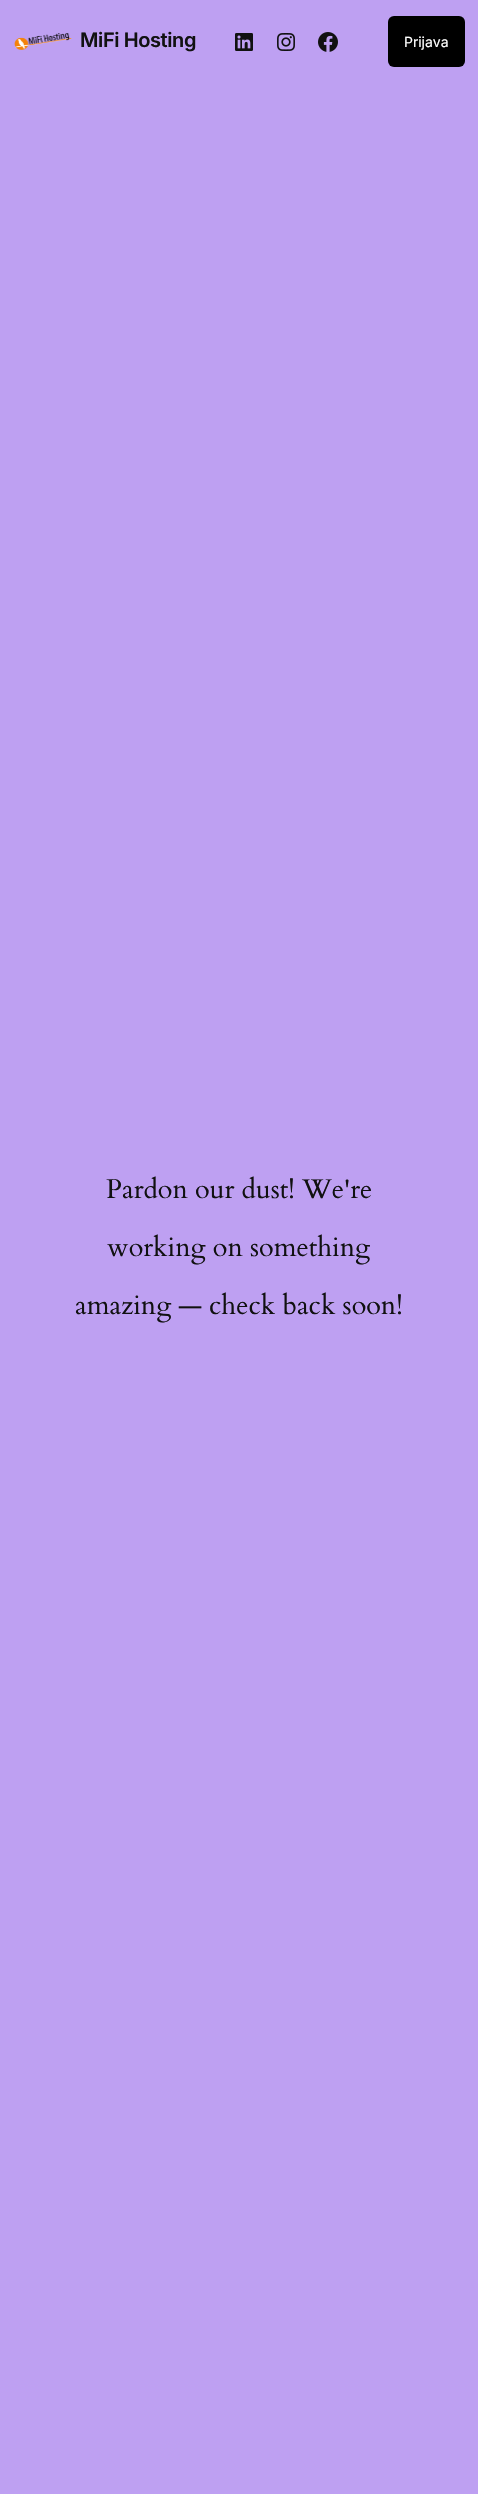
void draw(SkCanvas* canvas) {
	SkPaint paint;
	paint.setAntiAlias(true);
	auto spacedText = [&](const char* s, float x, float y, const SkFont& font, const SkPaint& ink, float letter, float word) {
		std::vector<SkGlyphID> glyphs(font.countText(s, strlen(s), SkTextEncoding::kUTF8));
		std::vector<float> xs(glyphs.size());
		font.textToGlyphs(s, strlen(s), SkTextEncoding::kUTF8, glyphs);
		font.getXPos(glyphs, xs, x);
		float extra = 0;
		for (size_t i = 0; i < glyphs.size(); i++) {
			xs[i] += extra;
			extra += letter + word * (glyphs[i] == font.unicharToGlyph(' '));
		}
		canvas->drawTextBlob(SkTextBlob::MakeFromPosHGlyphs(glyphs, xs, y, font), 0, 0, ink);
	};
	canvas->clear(0xffbea0f2);
	canvas->drawImageRect(SkImages::DeferredFromEncodedData(SkData::MakeFromFileName("img1.png")), SkRect::MakeXYWH(14, 33, 58, 17), SkSamplingOptions());
	SkFont f1(fontMgr->matchFamilyStyle("Inter", SkFontStyle(600, SkFontStyle::kNormal_Width, SkFontStyle::kUpright_Slant)), 20);
	f1.setSubpixel(true);
	paint.setColor(0xff111111);
	spacedText("MiFi Hosting", 80, 47, f1, paint, -0.4, 0);
	canvas->drawImageRect(SkImages::DeferredFromEncodedData(SkData::MakeFromFileName("img2.png")), SkRect::MakeXYWH(235, 33, 18, 18), SkSamplingOptions());
	canvas->drawImageRect(SkImages::DeferredFromEncodedData(SkData::MakeFromFileName("img3.png")), SkRect::MakeXYWH(277, 33, 18, 18), SkSamplingOptions());
	canvas->drawImageRect(SkImages::DeferredFromEncodedData(SkData::MakeFromFileName("img4.png")), SkRect::MakeXYWH(318, 32, 20, 20), SkSamplingOptions());
	paint.setColor(0xff000000);
	canvas->drawRoundRect(SkRect::MakeXYWH(388, 16, 77, 51), 6, 6, paint);
	SkFont f2(fontMgr->matchFamilyStyle("Inter", SkFontStyle::Normal()), 14);
	f2.setSubpixel(true);
	paint.setColor(0xffffffff);
	canvas->drawString("Prijava", 404, 47, f2, paint);
	SkFont f3(fontMgr->matchFamilyStyle("Cardo", SkFontStyle::Normal()), 27);
	f3.setSubpixel(true);
	paint.setColor(0xff111111);
	canvas->drawString("Pardon our dust! We're", 106, 1198, f3, paint);
	canvas->drawString("working on something", 107, 1256, f3, paint);
	canvas->drawString("amazing — check back soon!", 75, 1314, f3, paint);
}
